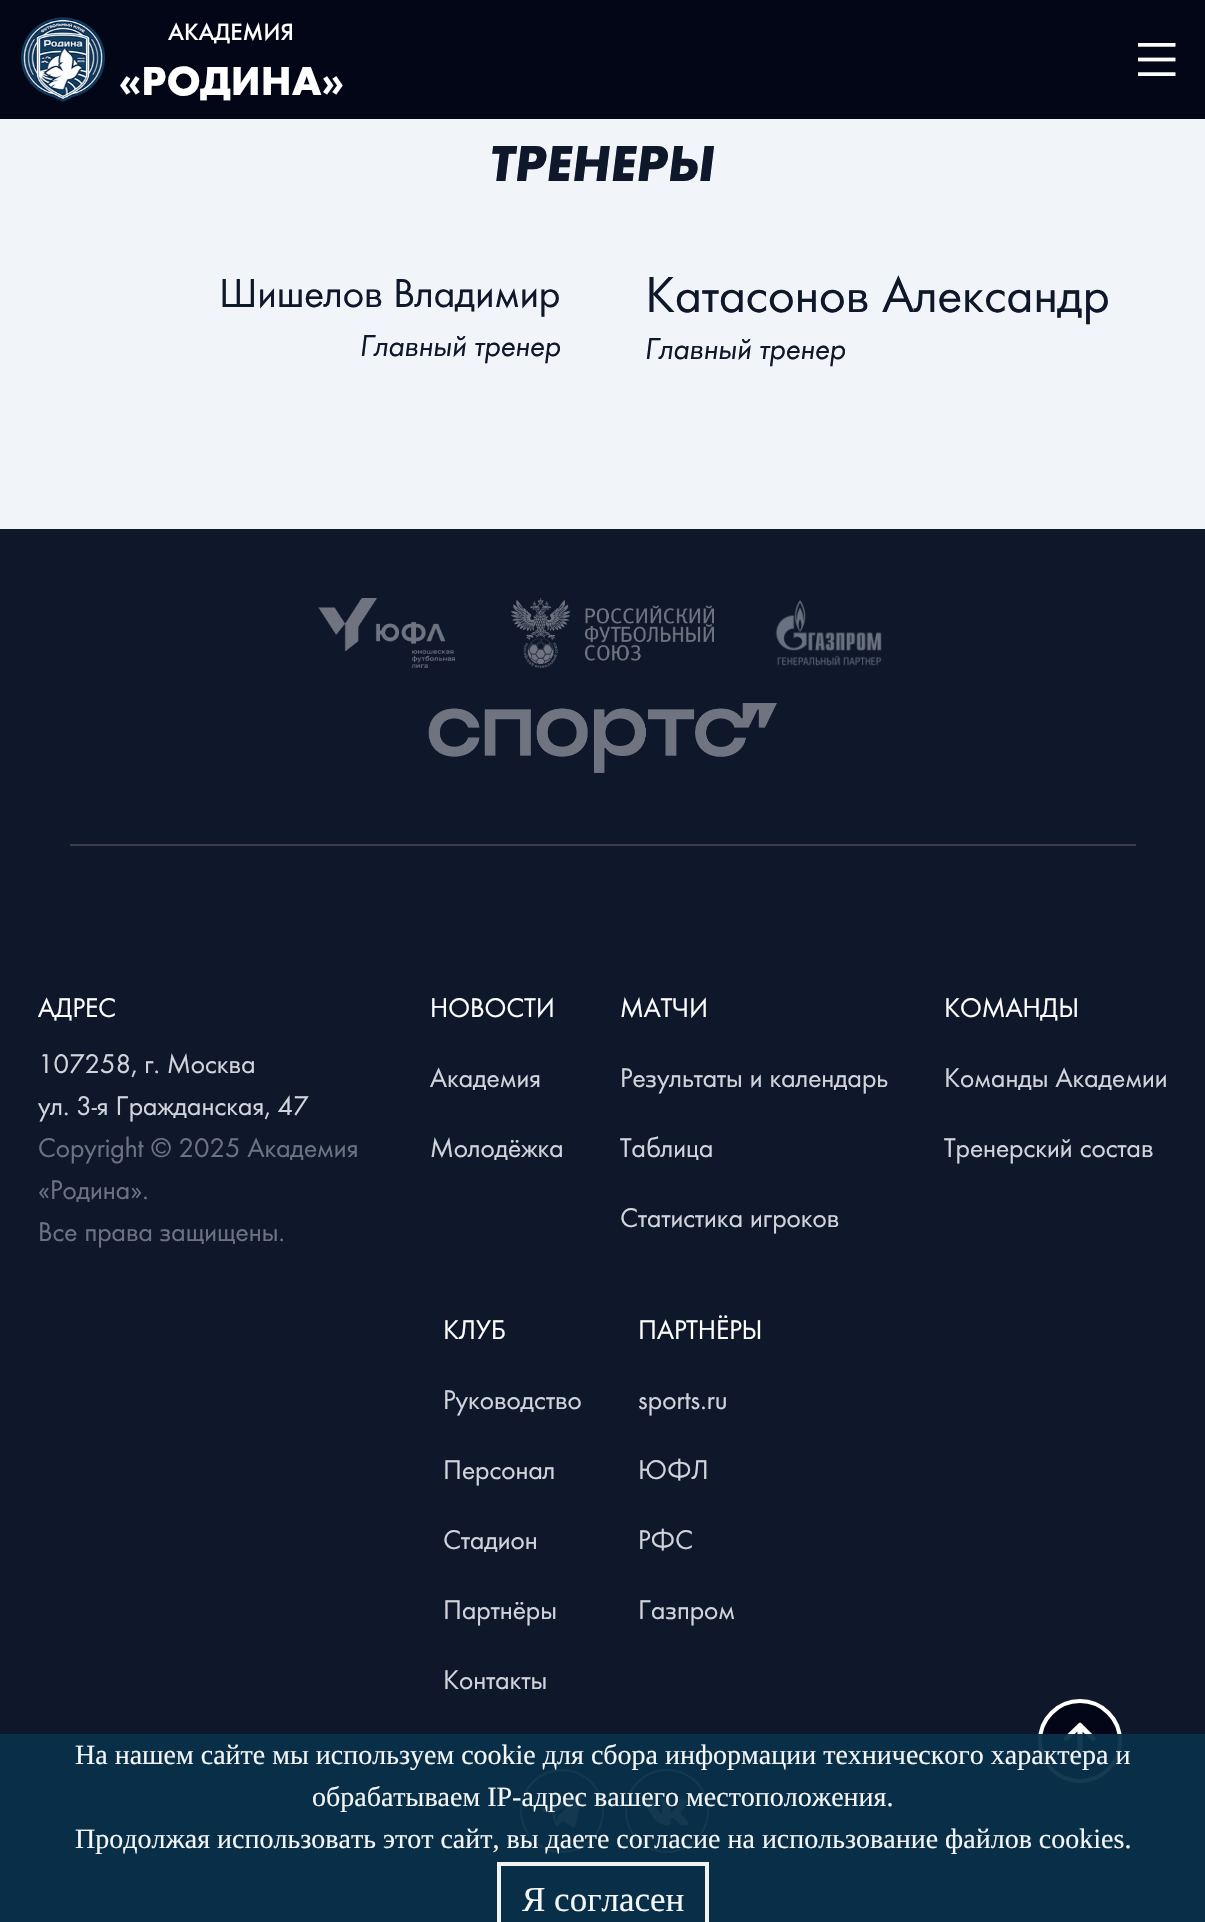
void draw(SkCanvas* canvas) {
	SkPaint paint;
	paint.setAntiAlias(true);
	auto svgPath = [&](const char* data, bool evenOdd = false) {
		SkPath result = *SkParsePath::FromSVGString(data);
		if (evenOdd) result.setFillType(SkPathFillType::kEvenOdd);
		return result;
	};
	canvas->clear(0xff0f172a);
	paint.setColor(0xff020617);
	canvas->drawRect(SkRect::MakeXYWH(0, 0, 1205, 119), paint);
	canvas->drawImageRect(SkImages::DeferredFromEncodedData(SkData::MakeFromFileName("img1.png")), SkRect::MakeXYWH(21, 17, 84, 85), SkSamplingOptions());
	SkFont f1(fontMgr->matchFamilyStyle("Futura", SkFontStyle(500, SkFontStyle::kNormal_Width, SkFontStyle::kUpright_Slant)), 24.5);
	f1.setSubpixel(true);
	paint.setColor(0xffffffff);
	canvas->drawString("АКАДЕМИЯ", 168, 40, f1, paint);
	SkFont f2(fontMgr->matchFamilyStyle("Futura", SkFontStyle::Bold()), 42);
	f2.setSubpixel(true);
	canvas->drawString("«РОДИНА»", 119, 95, f2, paint);
	canvas->drawImageRect(SkImages::DeferredFromEncodedData(SkData::MakeFromFileName("img2.png")), SkRect::MakeXYWH(1138, 43, 38, 33), SkSamplingOptions());
	paint.setColor(0xfff1f5f9);
	canvas->drawRect(SkRect::MakeXYWH(0, 119, 1205, 410), paint);
	SkFont f3(fontMgr->matchFamilyStyle("Futura", SkFontStyle::BoldItalic()), 52.5);
	f3.setSubpixel(true);
	paint.setColor(0xff0f172a);
	canvas->drawString("ТРЕНЕРЫ", 490, 181, f3, paint);
	SkFont f4(fontMgr->matchFamilyStyle("Futura", SkFontStyle::Normal()), 42);
	f4.setSubpixel(true);
	canvas->drawString("Шишелов Владимир", 219, 307, f4, paint);
	SkFont f5(fontMgr->matchFamilyStyle("Futura", SkFontStyle::Italic()), 31.5);
	f5.setSubpixel(true);
	canvas->drawString("Главный тренер", 360, 356, f5, paint);
	SkFont f6(fontMgr->matchFamilyStyle("Futura", SkFontStyle::Normal()), 52.5);
	f6.setSubpixel(true);
	canvas->drawString("Катасонов Александр", 645, 312, f6, paint);
	canvas->drawString("Главный тренер", 645, 359, f5, paint);
	paint.setColor(0xff020617);
	canvas->drawCircle(1080, 1741, 40, paint);
	paint.setStroke(true);
	paint.setStrokeWidth(4);
	paint.setColor(0xffffffff);
	canvas->drawCircle(1080, 1741, 40, paint);
	paint.setStrokeWidth(5.2);
	paint.setStrokeCap(SkPaint::kRound_Cap);
	paint.setStrokeJoin(SkPaint::kRound_Join);
	canvas->drawPath(svgPath("M1066.5 1738.5L1080 1725.5M1080 1725.5L1093 1738.5M1080 1725.5V1757"), paint);
	paint.setStroke(false);
	paint.setColor(0xff3c3f46);
	canvas->drawRect(SkRect::MakeXYWH(70, 844, 1066, 2), paint);
	canvas->drawImageRect(SkImages::DeferredFromEncodedData(SkData::MakeFromFileName("img3.png")), SkRect::MakeXYWH(318, 598, 137, 70), SkSamplingOptions());
	canvas->drawImageRect(SkImages::DeferredFromEncodedData(SkData::MakeFromFileName("img4.png")), SkRect::MakeXYWH(511, 598, 203, 70), SkSamplingOptions());
	canvas->drawImageRect(SkImages::DeferredFromEncodedData(SkData::MakeFromFileName("img5.png")), SkRect::MakeXYWH(775, 600, 107, 66), SkSamplingOptions());
	canvas->drawImageRect(SkImages::DeferredFromEncodedData(SkData::MakeFromFileName("img6.png")), SkRect::MakeXYWH(428, 703, 349, 70), SkSamplingOptions());
	SkFont f7(fontMgr->matchFamilyStyle("Futura", SkFontStyle::Normal()), 28);
	f7.setSubpixel(true);
	paint.setColor(0xffffffff);
	canvas->drawString("АДРЕС", 38, 1017, f7, paint);
	paint.setColor(0xffd1d5db);
	canvas->drawString("107258, г. Москва", 38, 1073, f7, paint);
	canvas->drawString("ул. 3-я Гражданская, 47", 38, 1115, f7, paint);
	paint.setColor(0xff6b7280);
	canvas->drawString("Copyright © 2025 Академия", 38, 1157, f7, paint);
	canvas->drawString("«Родина».", 38, 1199, f7, paint);
	canvas->drawString("Все права защищены.", 38, 1241, f7, paint);
	paint.setColor(0xffffffff);
	canvas->drawString("НОВОСТИ", 430, 1017, f7, paint);
	paint.setColor(0xffd1d5db);
	canvas->drawString("Академия", 430, 1087, f7, paint);
	canvas->drawString("Молодёжка", 430, 1157, f7, paint);
	paint.setColor(0xffffffff);
	canvas->drawString("МАТЧИ", 620, 1017, f7, paint);
	paint.setColor(0xffd1d5db);
	canvas->drawString("Результаты и календарь", 620, 1087, f7, paint);
	canvas->drawString("Таблица", 620, 1157, f7, paint);
	canvas->drawString("Статистика игроков", 620, 1227, f7, paint);
	paint.setColor(0xffffffff);
	canvas->drawString("КОМАНДЫ", 944, 1017, f7, paint);
	paint.setColor(0xffd1d5db);
	canvas->drawString("Команды Академии", 944, 1087, f7, paint);
	canvas->drawString("Тренерский состав", 944, 1157, f7, paint);
	paint.setColor(0xffffffff);
	canvas->drawString("КЛУБ", 443, 1339, f7, paint);
	paint.setColor(0xffd1d5db);
	canvas->drawString("Руководство", 443, 1409, f7, paint);
	canvas->drawString("Персонал", 443, 1479, f7, paint);
	canvas->drawString("Стадион", 443, 1549, f7, paint);
	canvas->drawString("Партнёры", 443, 1619, f7, paint);
	canvas->drawString("Контакты", 443, 1689, f7, paint);
	paint.setColor(0xffffffff);
	canvas->drawString("ПАРТНЁРЫ", 638, 1339, f7, paint);
	paint.setColor(0xffd1d5db);
	canvas->drawString("sports.ru", 638, 1409, f7, paint);
	canvas->drawString("ЮФЛ", 638, 1479, f7, paint);
	canvas->drawString("РФС", 638, 1549, f7, paint);
	canvas->drawString("Газпром", 638, 1619, f7, paint);
	paint.setColor(0xffcfd1d4);
	canvas->drawPath(svgPath("M572.5 1827.5C575 1829.5 575.5 1824.5 576 1823.5L579.5 1806.5C579.5 1805.5 582 1796.5 581.5 1795.5L581 1795H580L542.5 1808.5L542 1809.5C541.5 1811.5 545 1812 546 1812L552 1814L555 1823.5C556 1826 556.5 1827 558.5 1825L563 1820.5ZM554 1813L557 1822.5L557.5 1816.5L574.5 1801C574.5 1801 574.5 1800.5 574 1800.5Z", true), paint);
	paint.setStroke(true);
	paint.setStrokeWidth(2);
	paint.setStrokeCap(SkPaint::kButt_Cap);
	paint.setStrokeJoin(SkPaint::kMiter_Join);
	canvas->drawCircle(562, 1811, 41, paint);
	canvas->drawImageRect(SkImages::DeferredFromEncodedData(SkData::MakeFromFileName("img7.png")), SkRect::MakeXYWH(625, 1769, 84, 84), SkSamplingOptions());
	paint.setStroke(false);
	paint.setColor(0xf2082f49);
	canvas->drawRect(SkRect::MakeXYWH(0, 1734, 1205, 188), paint);
	SkFont f8(fontMgr->matchFamilyStyle("Liberation Serif", SkFontStyle::Normal()), 28);
	f8.setSubpixel(true);
	paint.setColor(0xfff3f5f6);
	canvas->drawString("На нашем сайте мы используем cookie для сбора информации технического характера и", 75, 1764, f8, paint);
	canvas->drawString("обрабатываем IP-адрес вашего местоположения.", 312, 1806, f8, paint);
	canvas->drawString("Продолжая использовать этот сайт, вы даете согласие на использование файлов cookies.", 75, 1848, f8, paint);
	paint.setStroke(true);
	paint.setStrokeWidth(4);
	paint.setColor(0xfff3f3f4);
	canvas->drawRect(SkRect::MakeXYWH(499, 1864, 208, 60), paint);
	SkFont f9(fontMgr->matchFamilyStyle("Liberation Serif", SkFontStyle::Normal()), 35);
	f9.setSubpixel(true);
	paint.setStroke(false);
	paint.setColor(0xfff3f5f6);
	canvas->drawString("Я согласен", 522, 1911, f9, paint);
}
